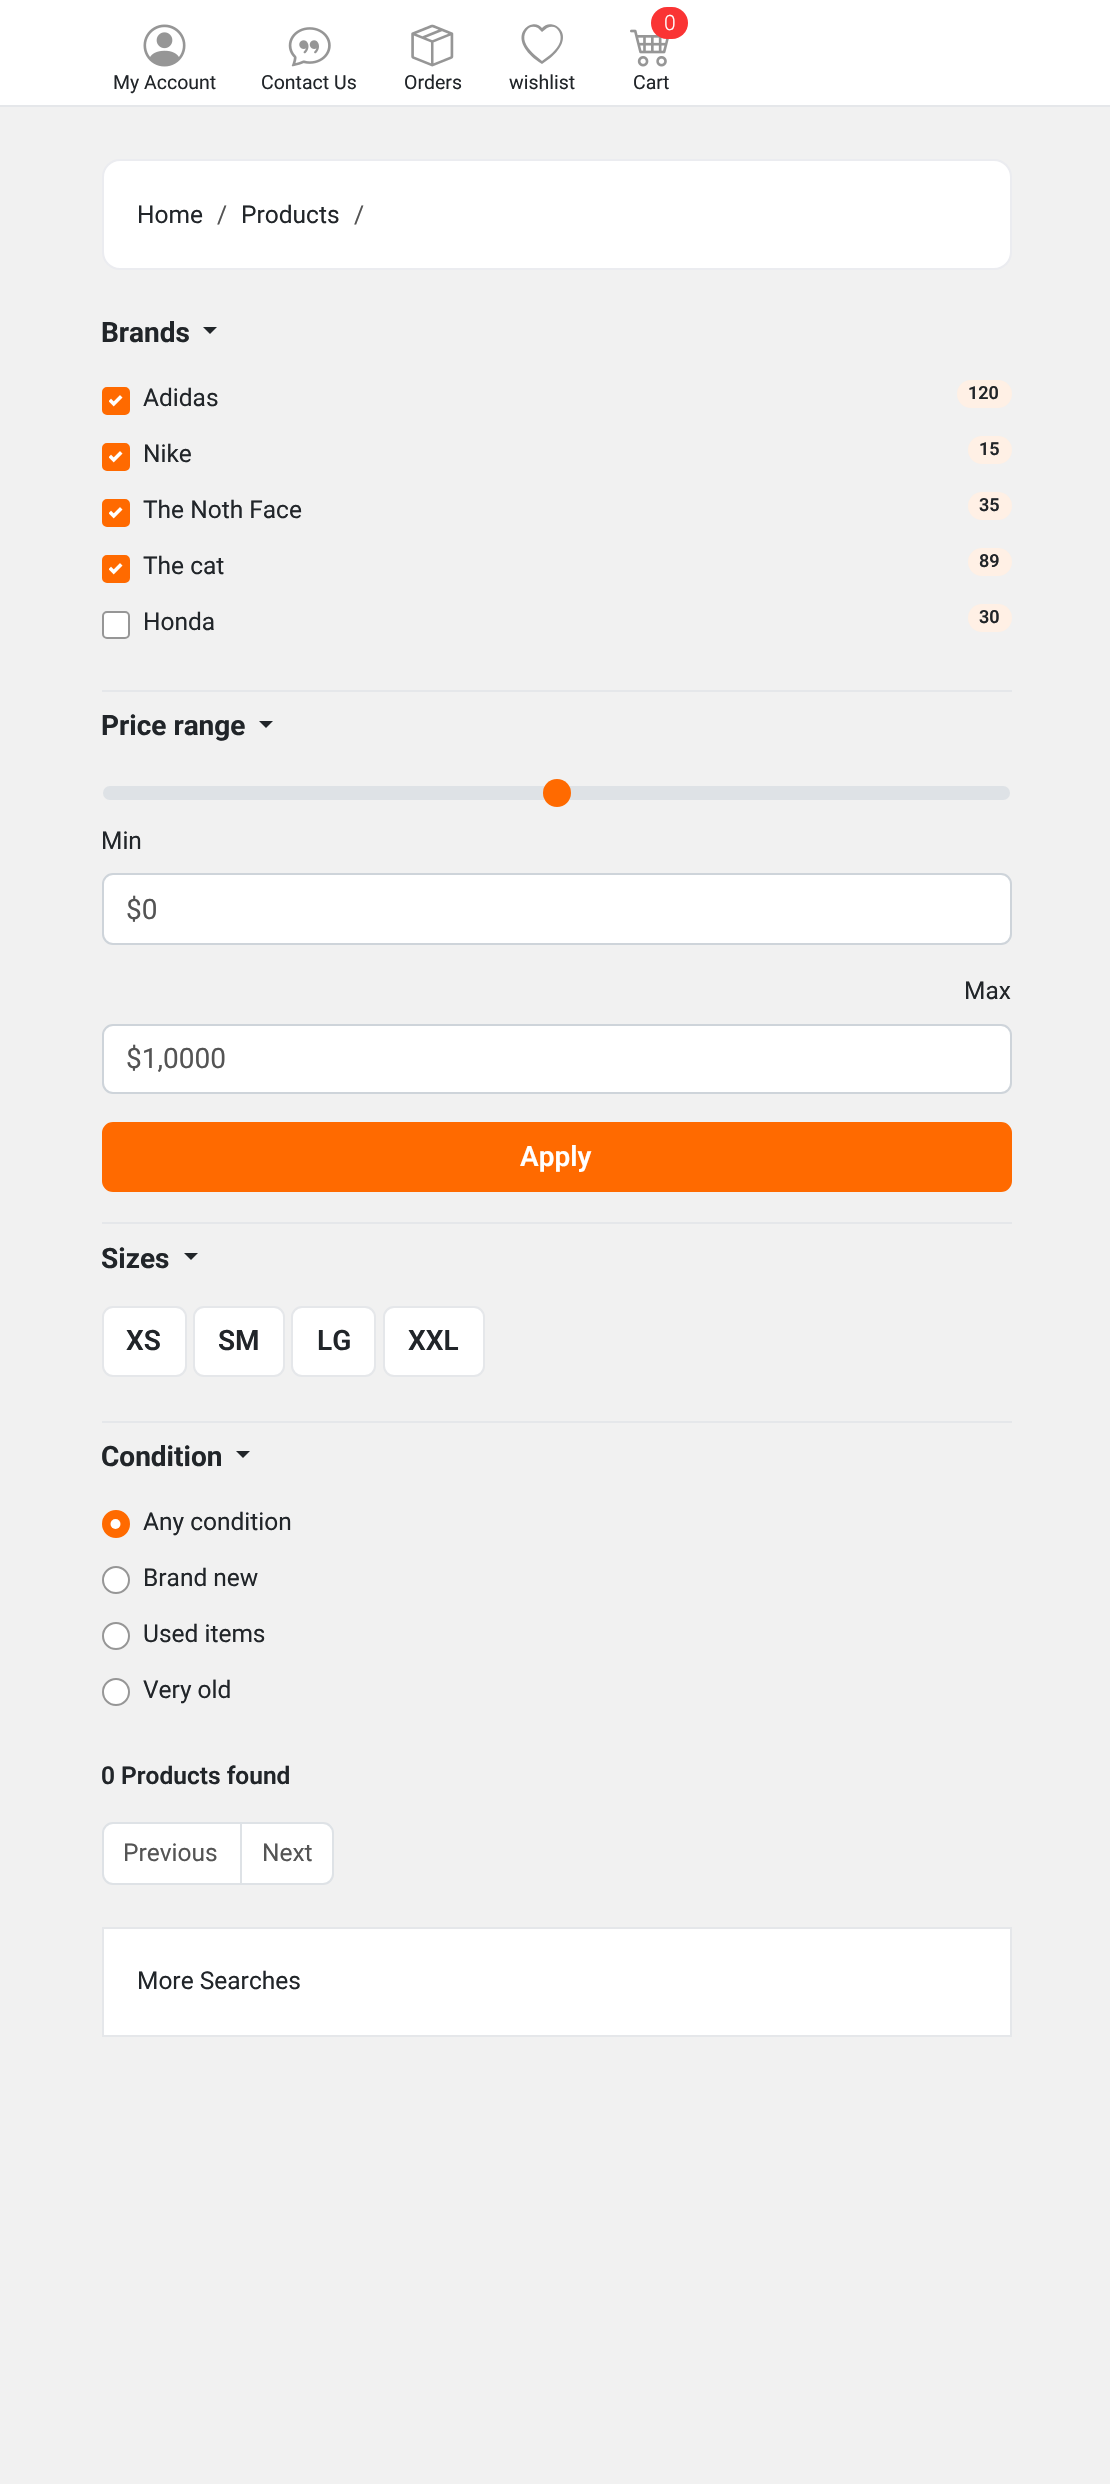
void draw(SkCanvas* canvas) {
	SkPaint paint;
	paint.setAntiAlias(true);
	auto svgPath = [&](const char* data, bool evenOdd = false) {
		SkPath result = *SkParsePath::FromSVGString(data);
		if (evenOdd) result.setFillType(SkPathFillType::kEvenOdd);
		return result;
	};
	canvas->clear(0xfff1f1f1);
	paint.setColor(0xffffffff);
	canvas->drawRect(SkRect::MakeXYWH(0, 0, 1110, 105), paint);
	paint.setColor(0xffe5e7ea);
	canvas->drawRect(SkRect::MakeXYWH(0, 105, 1110, 2), paint);
	canvas->drawImageRect(SkImages::DeferredFromEncodedData(SkData::MakeFromFileName("img1.png")), SkRect::MakeXYWH(143, 24, 43, 43), SkSamplingOptions());
	SkFont f1(fontMgr->matchFamilyStyle("Roboto", SkFontStyle::Normal()), 19.5);
	f1.setSubpixel(true);
	paint.setColor(0xff212529);
	canvas->drawString("My Account", 113, 89, f1, paint);
	canvas->drawImageRect(SkImages::DeferredFromEncodedData(SkData::MakeFromFileName("img2.png")), SkRect::MakeXYWH(288, 27, 43, 40), SkSamplingOptions());
	canvas->drawString("Contact Us", 261, 89, f1, paint);
	canvas->drawImageRect(SkImages::DeferredFromEncodedData(SkData::MakeFromFileName("img3.png")), SkRect::MakeXYWH(411, 24, 43, 43), SkSamplingOptions());
	canvas->drawString("Orders", 404, 89, f1, paint);
	paint.setColor(0xff969696);
	canvas->drawPath(svgPath("M542 32L538 28C529 23 522 33 525 42C528 50 536 56 542 61C549 56 557 50 560 42C563 33 556 23 547 28ZM542 64C501 37 533 15 542 28C552 15 584 37 542 64Z"), paint);
	paint.setColor(0xff212529);
	canvas->drawString("wishlist", 509, 89, f1, paint);
	canvas->drawImageRect(SkImages::DeferredFromEncodedData(SkData::MakeFromFileName("img4.png")), SkRect::MakeXYWH(630, 29, 39, 38), SkSamplingOptions());
	paint.setColor(0xfffa3434);
	canvas->drawRoundRect(SkRect::MakeXYWH(651, 7, 37, 32), 16, 16, paint);
	SkFont f2(fontMgr->matchFamilyStyle("Roboto", SkFontStyle(300, SkFontStyle::kNormal_Width, SkFontStyle::kUpright_Slant)), 21);
	f2.setSubpixel(true);
	paint.setColor(0xffffffff);
	canvas->drawString("0", 664, 30, f2, paint);
	paint.setColor(0xff212529);
	canvas->drawString("Cart", 633, 89, f1, paint);
	paint.setColor(0xffffffff);
	canvas->drawRoundRect(SkRect::MakeXYWH(103, 160, 908, 109), 17, 17, paint);
	paint.setStroke(true);
	paint.setStrokeWidth(2);
	paint.setColor(0xffebecf0);
	canvas->drawRoundRect(SkRect::MakeXYWH(103, 160, 908, 109), 17, 17, paint);
	SkFont f3(fontMgr->matchFamilyStyle("Roboto", SkFontStyle::Normal()), 24.5);
	f3.setSubpixel(true);
	paint.setStroke(false);
	paint.setColor(0xff212529);
	canvas->drawString("Home", 137, 223, f3, paint);
	paint.setColor(0xff545454);
	canvas->drawString("/", 217, 223, f3, paint);
	paint.setColor(0xff212529);
	canvas->drawString("Products", 241, 223, f3, paint);
	paint.setColor(0xff545454);
	canvas->drawString("/", 354, 223, f3, paint);
	paint.setColor(0xffe5e7ea);
	canvas->drawRect(SkRect::MakeXYWH(102, 690, 910, 2), paint);
	SkFont f4(fontMgr->matchFamilyStyle("Roboto", SkFontStyle::Bold()), 28);
	f4.setSubpixel(true);
	paint.setColor(0xff212529);
	canvas->drawString("Brands", 101, 342, f4, paint);
	canvas->drawPath(svgPath("M203 327H217L210 334Z"), paint);
	paint.setColor(0xffff6a00);
	canvas->drawRoundRect(SkRect::MakeXYWH(103, 388, 26, 26), 4, 4, paint);
	paint.setStroke(true);
	canvas->drawRoundRect(SkRect::MakeXYWH(103, 388, 26, 26), 4, 4, paint);
	paint.setStroke(false);
	paint.setColor(0xff212529);
	canvas->drawString("Adidas", 143, 406, f3, paint);
	paint.setColor(0xfffff0e5);
	canvas->drawRoundRect(SkRect::MakeXYWH(957, 380, 55, 28), 14, 14, paint);
	SkFont f5(fontMgr->matchFamilyStyle("Roboto", SkFontStyle(600, SkFontStyle::kNormal_Width, SkFontStyle::kUpright_Slant)), 18);
	f5.setSubpixel(true);
	paint.setColor(0xff212529);
	canvas->drawString("120", 968, 399, f5, paint);
	canvas->drawImageRect(SkImages::DeferredFromEncodedData(SkData::MakeFromFileName("img5.png")), SkRect::MakeXYWH(109, 395, 14, 12), SkSamplingOptions());
	paint.setColor(0xffff6a00);
	canvas->drawRoundRect(SkRect::MakeXYWH(103, 444, 26, 26), 4, 4, paint);
	paint.setStroke(true);
	canvas->drawRoundRect(SkRect::MakeXYWH(103, 444, 26, 26), 4, 4, paint);
	paint.setStroke(false);
	paint.setColor(0xff212529);
	canvas->drawString("Nike", 143, 462, f3, paint);
	paint.setColor(0xfffff0e5);
	canvas->drawRoundRect(SkRect::MakeXYWH(968, 436, 44, 28), 14, 14, paint);
	paint.setColor(0xff212529);
	canvas->drawString("15", 979, 455, f5, paint);
	canvas->drawImageRect(SkImages::DeferredFromEncodedData(SkData::MakeFromFileName("img5.png")), SkRect::MakeXYWH(109, 451, 14, 12), SkSamplingOptions());
	paint.setColor(0xffff6a00);
	canvas->drawRoundRect(SkRect::MakeXYWH(103, 500, 26, 26), 4, 4, paint);
	paint.setStroke(true);
	canvas->drawRoundRect(SkRect::MakeXYWH(103, 500, 26, 26), 4, 4, paint);
	paint.setStroke(false);
	paint.setColor(0xff212529);
	canvas->drawString("The Noth Face", 143, 518, f3, paint);
	paint.setColor(0xfffff0e5);
	canvas->drawRoundRect(SkRect::MakeXYWH(968, 492, 44, 28), 14, 14, paint);
	paint.setColor(0xff212529);
	canvas->drawString("35", 979, 511, f5, paint);
	canvas->drawImageRect(SkImages::DeferredFromEncodedData(SkData::MakeFromFileName("img5.png")), SkRect::MakeXYWH(109, 507, 14, 12), SkSamplingOptions());
	paint.setColor(0xffff6a00);
	canvas->drawRoundRect(SkRect::MakeXYWH(103, 556, 26, 26), 4, 4, paint);
	paint.setStroke(true);
	canvas->drawRoundRect(SkRect::MakeXYWH(103, 556, 26, 26), 4, 4, paint);
	paint.setStroke(false);
	paint.setColor(0xff212529);
	canvas->drawString("The cat", 143, 574, f3, paint);
	paint.setColor(0xfffff0e5);
	canvas->drawRoundRect(SkRect::MakeXYWH(968, 548, 44, 28), 14, 14, paint);
	paint.setColor(0xff212529);
	canvas->drawString("89", 979, 567, f5, paint);
	canvas->drawImageRect(SkImages::DeferredFromEncodedData(SkData::MakeFromFileName("img5.png")), SkRect::MakeXYWH(109, 563, 14, 12), SkSamplingOptions());
	paint.setColor(0xffffffff);
	canvas->drawRoundRect(SkRect::MakeXYWH(103, 612, 26, 26), 4, 4, paint);
	paint.setStroke(true);
	paint.setColor(0xff969696);
	canvas->drawRoundRect(SkRect::MakeXYWH(103, 612, 26, 26), 4, 4, paint);
	paint.setStroke(false);
	paint.setColor(0xff212529);
	canvas->drawString("Honda", 143, 630, f3, paint);
	paint.setColor(0xfffff0e5);
	canvas->drawRoundRect(SkRect::MakeXYWH(968, 604, 44, 28), 14, 14, paint);
	paint.setColor(0xff212529);
	canvas->drawString("30", 979, 623, f5, paint);
	paint.setColor(0xffe5e7ea);
	canvas->drawRect(SkRect::MakeXYWH(102, 1222, 910, 2), paint);
	paint.setColor(0xff212529);
	canvas->drawString("Price range", 101, 735, f4, paint);
	canvas->drawPath(svgPath("M259 721H273L266 728Z"), paint);
	paint.setColor(0xffdee2e6);
	canvas->drawRoundRect(SkRect::MakeXYWH(103, 786, 907, 14), 7, 7, paint);
	paint.setColor(0xffff6a00);
	canvas->drawCircle(557, 793, 14, paint);
	paint.setColor(0xff212529);
	canvas->drawString("Min", 101, 849, f3, paint);
	paint.setColor(0xffffffff);
	canvas->drawRoundRect(SkRect::MakeXYWH(103, 874, 908, 70), 10, 10, paint);
	paint.setStroke(true);
	paint.setColor(0xffced4da);
	canvas->drawRoundRect(SkRect::MakeXYWH(103, 874, 908, 70), 10, 10, paint);
	SkFont f6(fontMgr->matchFamilyStyle("Roboto", SkFontStyle::Normal()), 28);
	f6.setSubpixel(true);
	paint.setStroke(false);
	paint.setColor(0xff545454);
	canvas->drawString("$0", 126, 919, f6, paint);
	paint.setColor(0xff212529);
	canvas->drawString("Max", 964, 999, f3, paint);
	paint.setColor(0xffffffff);
	canvas->drawRoundRect(SkRect::MakeXYWH(103, 1025, 908, 68), 10, 10, paint);
	paint.setStroke(true);
	paint.setColor(0xffced4da);
	canvas->drawRoundRect(SkRect::MakeXYWH(103, 1025, 908, 68), 10, 10, paint);
	paint.setStroke(false);
	paint.setColor(0xff545454);
	canvas->drawString("$1,0000", 126, 1068, f6, paint);
	paint.setColor(0xffff6a00);
	canvas->drawRoundRect(SkRect::MakeXYWH(103, 1123, 908, 68), 10, 10, paint);
	paint.setStroke(true);
	canvas->drawRoundRect(SkRect::MakeXYWH(103, 1123, 908, 68), 10, 10, paint);
	SkFont f7(fontMgr->matchFamilyStyle("Roboto", SkFontStyle(600, SkFontStyle::kNormal_Width, SkFontStyle::kUpright_Slant)), 28);
	f7.setSubpixel(true);
	paint.setStroke(false);
	paint.setColor(0xffffffff);
	canvas->drawString("Apply", 520, 1166, f7, paint);
	paint.setColor(0xffe5e7ea);
	canvas->drawRect(SkRect::MakeXYWH(102, 1421, 910, 2), paint);
	paint.setColor(0xff212529);
	canvas->drawString("Sizes", 101, 1268, f4, paint);
	canvas->drawPath(svgPath("M184 1253H198L191 1260Z"), paint);
	paint.setColor(0xffffffff);
	canvas->drawRoundRect(SkRect::MakeXYWH(103, 1307, 83, 69), 10, 10, paint);
	paint.setStroke(true);
	paint.setColor(0xffe5e7ea);
	canvas->drawRoundRect(SkRect::MakeXYWH(103, 1307, 83, 69), 10, 10, paint);
	paint.setStroke(false);
	paint.setColor(0xff212529);
	canvas->drawString("XS", 126, 1350, f7, paint);
	paint.setColor(0xffffffff);
	canvas->drawRoundRect(SkRect::MakeXYWH(194, 1307, 90, 69), 10, 10, paint);
	paint.setStroke(true);
	paint.setColor(0xffe5e7ea);
	canvas->drawRoundRect(SkRect::MakeXYWH(194, 1307, 90, 69), 10, 10, paint);
	paint.setStroke(false);
	paint.setColor(0xff212529);
	canvas->drawString("SM", 218, 1350, f7, paint);
	paint.setColor(0xffffffff);
	canvas->drawRoundRect(SkRect::MakeXYWH(292, 1307, 83, 69), 10, 10, paint);
	paint.setStroke(true);
	paint.setColor(0xffe5e7ea);
	canvas->drawRoundRect(SkRect::MakeXYWH(292, 1307, 83, 69), 10, 10, paint);
	paint.setStroke(false);
	paint.setColor(0xff212529);
	canvas->drawString("LG", 317, 1350, f7, paint);
	paint.setColor(0xffffffff);
	canvas->drawRoundRect(SkRect::MakeXYWH(384, 1307, 100, 69), 10, 10, paint);
	paint.setStroke(true);
	paint.setColor(0xffe5e7ea);
	canvas->drawRoundRect(SkRect::MakeXYWH(384, 1307, 100, 69), 10, 10, paint);
	paint.setStroke(false);
	paint.setColor(0xff212529);
	canvas->drawString("XXL", 408, 1350, f7, paint);
	canvas->drawString("Condition", 101, 1466, f4, paint);
	canvas->drawPath(svgPath("M236 1451H250L243 1458Z"), paint);
	paint.setColor(0xffff6a00);
	canvas->drawCircle(116, 1524, 13, paint);
	paint.setStroke(true);
	canvas->drawCircle(116, 1524, 13, paint);
	paint.setStroke(false);
	paint.setColor(0xff212529);
	canvas->drawString("Any condition", 143, 1530, f3, paint);
	paint.setColor(0xffffffff);
	canvas->drawCircle(115.5, 1524, 5, paint);
	canvas->drawCircle(116, 1580, 13, paint);
	paint.setStroke(true);
	paint.setColor(0xff969696);
	canvas->drawCircle(116, 1580, 13, paint);
	paint.setStroke(false);
	paint.setColor(0xff212529);
	canvas->drawString("Brand new", 143, 1586, f3, paint);
	paint.setColor(0xffffffff);
	canvas->drawCircle(116, 1636, 13, paint);
	paint.setStroke(true);
	paint.setColor(0xff969696);
	canvas->drawCircle(116, 1636, 13, paint);
	paint.setStroke(false);
	paint.setColor(0xff212529);
	canvas->drawString("Used items", 143, 1642, f3, paint);
	paint.setColor(0xffffffff);
	canvas->drawCircle(116, 1692, 13, paint);
	paint.setStroke(true);
	paint.setColor(0xff969696);
	canvas->drawCircle(116, 1692, 13, paint);
	paint.setStroke(false);
	paint.setColor(0xff212529);
	canvas->drawString("Very old", 143, 1698, f3, paint);
	SkFont f8(fontMgr->matchFamilyStyle("Roboto", SkFontStyle(600, SkFontStyle::kNormal_Width, SkFontStyle::kUpright_Slant)), 24.5);
	f8.setSubpixel(true);
	canvas->drawString("0 Products found", 101, 1784, f8, paint);
	paint.setColor(0xffffffff);
	canvas->drawPath(svgPath("M113 1823H241V1884H113C107.5 1884 103 1879.5 103 1874V1833C103 1827.5 107.5 1823 113 1823Z"), paint);
	paint.setStroke(true);
	paint.setColor(0xffdee2e6);
	canvas->drawPath(svgPath("M113 1823H241V1884H113C107.5 1884 103 1879.5 103 1874V1833C103 1827.5 107.5 1823 113 1823Z"), paint);
	paint.setStroke(false);
	paint.setColor(0xff545454);
	canvas->drawString("Previous", 123, 1861, f3, paint);
	paint.setColor(0xffffffff);
	canvas->drawPath(svgPath("M241 1823H323C328.5 1823 333 1827.5 333 1833V1874C333 1879.5 328.5 1884 323 1884H241Z"), paint);
	paint.setStroke(true);
	paint.setColor(0xffdee2e6);
	canvas->drawPath(svgPath("M241 1823H323C328.5 1823 333 1827.5 333 1833V1874C333 1879.5 328.5 1884 323 1884H241Z"), paint);
	paint.setStroke(false);
	paint.setColor(0xff545454);
	canvas->drawString("Next", 262, 1861, f3, paint);
	paint.setColor(0xffffffff);
	canvas->drawRect(SkRect::MakeXYWH(103, 1928, 908, 108), paint);
	paint.setStroke(true);
	paint.setColor(0xffe5e7ea);
	canvas->drawRect(SkRect::MakeXYWH(103, 1928, 908, 108), paint);
	paint.setStroke(false);
	paint.setColor(0xff212529);
	canvas->drawString("More Searches", 137, 1989, f3, paint);
}
